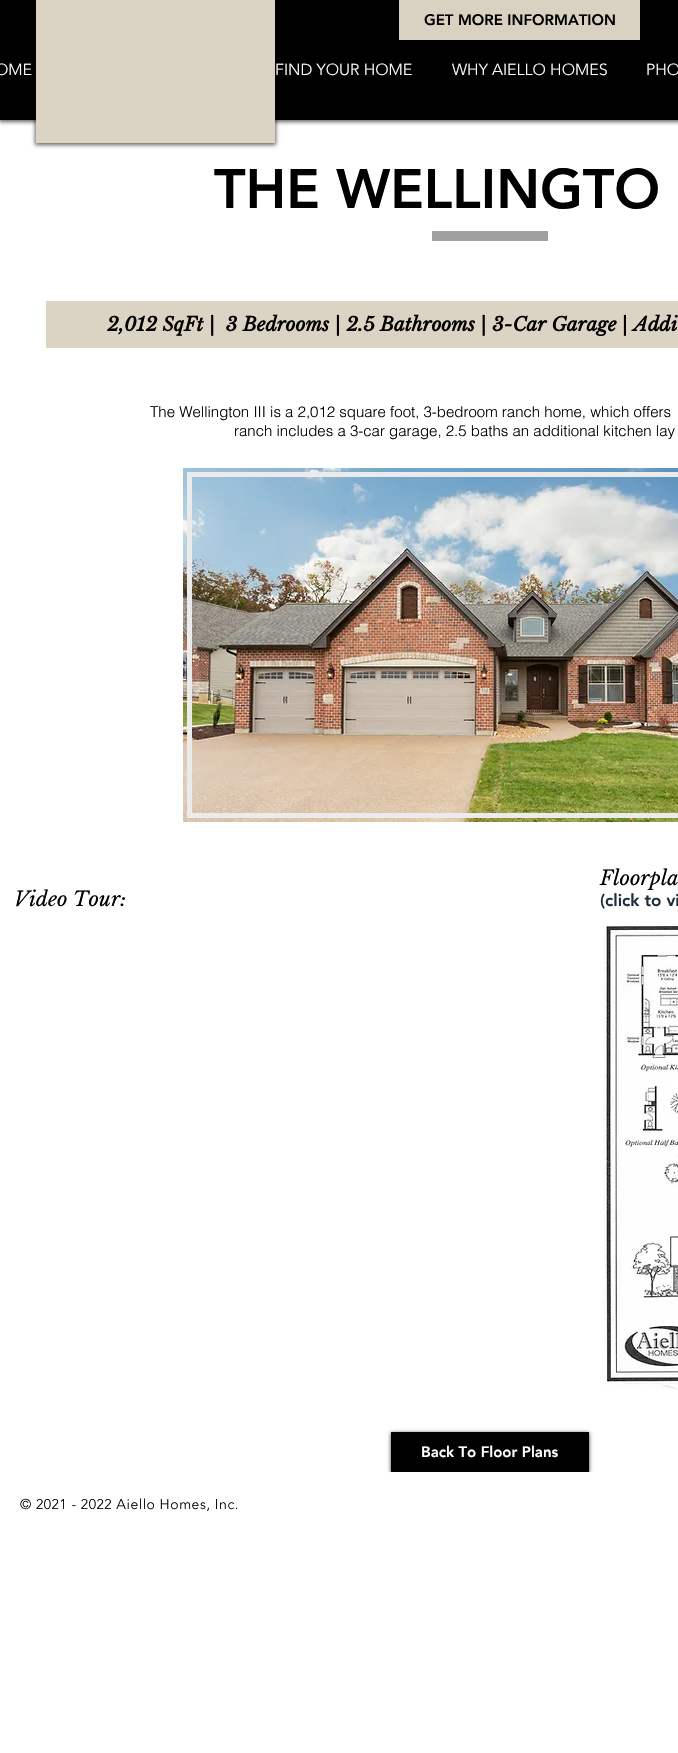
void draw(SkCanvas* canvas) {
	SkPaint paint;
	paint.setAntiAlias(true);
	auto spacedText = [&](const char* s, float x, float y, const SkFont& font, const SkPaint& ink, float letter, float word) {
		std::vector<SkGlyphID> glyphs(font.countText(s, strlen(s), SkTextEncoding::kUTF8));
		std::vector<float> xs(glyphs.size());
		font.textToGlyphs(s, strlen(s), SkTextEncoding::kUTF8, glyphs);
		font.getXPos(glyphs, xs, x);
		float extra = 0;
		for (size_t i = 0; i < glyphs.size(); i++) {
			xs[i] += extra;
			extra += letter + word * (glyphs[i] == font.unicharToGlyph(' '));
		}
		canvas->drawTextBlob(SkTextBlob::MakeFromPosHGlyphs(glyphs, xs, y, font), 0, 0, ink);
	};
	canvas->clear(0xffffffff);
	paint.setColor(0x99000000);
	paint.setMaskFilter(SkMaskFilter::MakeBlur(kNormal_SkBlurStyle, 2));
	canvas->drawRect(SkRect::MakeXYWH(-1, 0, 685, 122), paint);
	paint.setMaskFilter(nullptr);
	paint.setColor(0xff000000);
	canvas->drawRect(SkRect::MakeXYWH(0, 0, 678, 120), paint);
	paint.setColor(0x99000000);
	paint.setMaskFilter(SkMaskFilter::MakeBlur(kNormal_SkBlurStyle, 2));
	canvas->drawRect(SkRect::MakeXYWH(35, 0, 241, 145), paint);
	paint.setMaskFilter(nullptr);
	paint.setColor(0xffdbd3c3);
	canvas->drawRect(SkRect::MakeXYWH(36, 0, 239, 143), paint);
	paint.setColor(0xffd9d1c1);
	canvas->drawRect(SkRect::MakeXYWH(399, 0, 241, 40), paint);
	SkFont f1(fontMgr->matchFamilyStyle("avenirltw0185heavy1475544", SkFontStyle(900, SkFontStyle::kNormal_Width, SkFontStyle::kUpright_Slant)), 15);
	f1.setSubpixel(true);
	paint.setColor(0xff000000);
	canvas->drawString("GET MORE INFORMATION", 424, 25, f1, paint);
	SkFont f2(fontMgr->matchFamilyStyle("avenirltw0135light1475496", SkFontStyle(300, SkFontStyle::kNormal_Width, SkFontStyle::kUpright_Slant)), 16);
	f2.setSubpixel(true);
	paint.setColor(0xffffffff);
	canvas->drawString("OME", -5, 75, f2, paint);
	canvas->drawString("FIND YOUR HOME", 275, 75, f2, paint);
	canvas->drawString("WHY AIELLO HOMES", 452, 75, f2, paint);
	canvas->drawString("PHO", 646, 75, f2, paint);
	SkFont f3(fontMgr->matchFamilyStyle("avenirltw0185heavy1475544", SkFontStyle(900, SkFontStyle::kNormal_Width, SkFontStyle::kUpright_Slant)), 55);
	f3.setSubpixel(true);
	paint.setColor(0xff000000);
	canvas->drawString("THE WELLINGTO", 214, 208, f3, paint);
	paint.setColor(0xffa0a09f);
	canvas->drawRect(SkRect::MakeXYWH(432, 231, 116, 10), paint);
	paint.setColor(0xffdbd3c3);
	canvas->drawRect(SkRect::MakeXYWH(46, 301, 632, 47), paint);
	SkFont f4(fontMgr->matchFamilyStyle("Libre Baskerville", SkFontStyle::BoldItalic()), 19);
	f4.setSubpixel(true);
	paint.setColor(0xff000000);
	canvas->drawString("2,012 SqFt |  3 Bedrooms | 2.5 Bathrooms | 3-Car Garage | Addi", 107, 331, f4, paint);
	SkFont f5(fontMgr->matchFamilyStyle("helvetica", SkFontStyle(300, SkFontStyle::kNormal_Width, SkFontStyle::kUpright_Slant)), 15);
	f5.setSubpixel(true);
	canvas->drawString("The Wellington III is a 2,012 square foot, 3-bedroom ranch home, which offers", 150, 417, f5, paint);
	canvas->drawString("ranch includes a 3-car garage, 2.5 baths an additional kitchen lay", 234, 436, f5, paint);
	canvas->drawImageRect(SkImages::DeferredFromEncodedData(SkData::MakeFromFileName("img1.png")), SkRect::MakeXYWH(183, 468, 495, 354), SkSamplingOptions());
	paint.setStroke(true);
	paint.setStrokeWidth(5);
	paint.setColor(0xffebebeb);
	canvas->drawRect(SkRect::MakeXYWH(189.5, 474.5, 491, 341), paint);
	SkFont f6(fontMgr->matchFamilyStyle("Libre Baskerville", SkFontStyle::Italic()), 20);
	f6.setSubpixel(true);
	paint.setStroke(false);
	paint.setColor(0xff000000);
	canvas->drawString("Video Tour:", 14, 906, f6, paint);
	canvas->drawString("Floorpla", 600, 885, f6, paint);
	SkFont f7(fontMgr->matchFamilyStyle("avenirltw0185heavy1475544", SkFontStyle(900, SkFontStyle::kNormal_Width, SkFontStyle::kUpright_Slant)), 17);
	f7.setSubpixel(true);
	paint.setColor(0xff1e2d3b);
	canvas->drawString("(click to vi", 600, 906, f7, paint);
	canvas->drawImageRect(SkImages::DeferredFromEncodedData(SkData::MakeFromFileName("img2.png")), SkRect::MakeXYWH(603, 926, 75, 464), SkSamplingOptions());
	paint.setColor(0xcc000000);
	paint.setMaskFilter(SkMaskFilter::MakeBlur(kNormal_SkBlurStyle, 2));
	canvas->drawRect(SkRect::MakeXYWH(391, 1433, 198, 40), paint);
	paint.setMaskFilter(nullptr);
	paint.setColor(0xff000000);
	canvas->drawRect(SkRect::MakeXYWH(391, 1432, 198, 40), paint);
	paint.setColor(0xffffffff);
	canvas->drawString("Back To Floor Plans", 421, 1457, f1, paint);
	canvas->drawRect(SkRect::MakeXYWH(387, 1472, 206, 5), paint);
	SkFont f8(fontMgr->matchFamilyStyle("avenirltw0135light1475496", SkFontStyle(300, SkFontStyle::kNormal_Width, SkFontStyle::kUpright_Slant)), 14);
	f8.setSubpixel(true);
	paint.setColor(0xff000000);
	spacedText("© 2021 - 2022 Aiello Homes, Inc.", 20, 1509, f8, paint, 0.55, 0);
}
